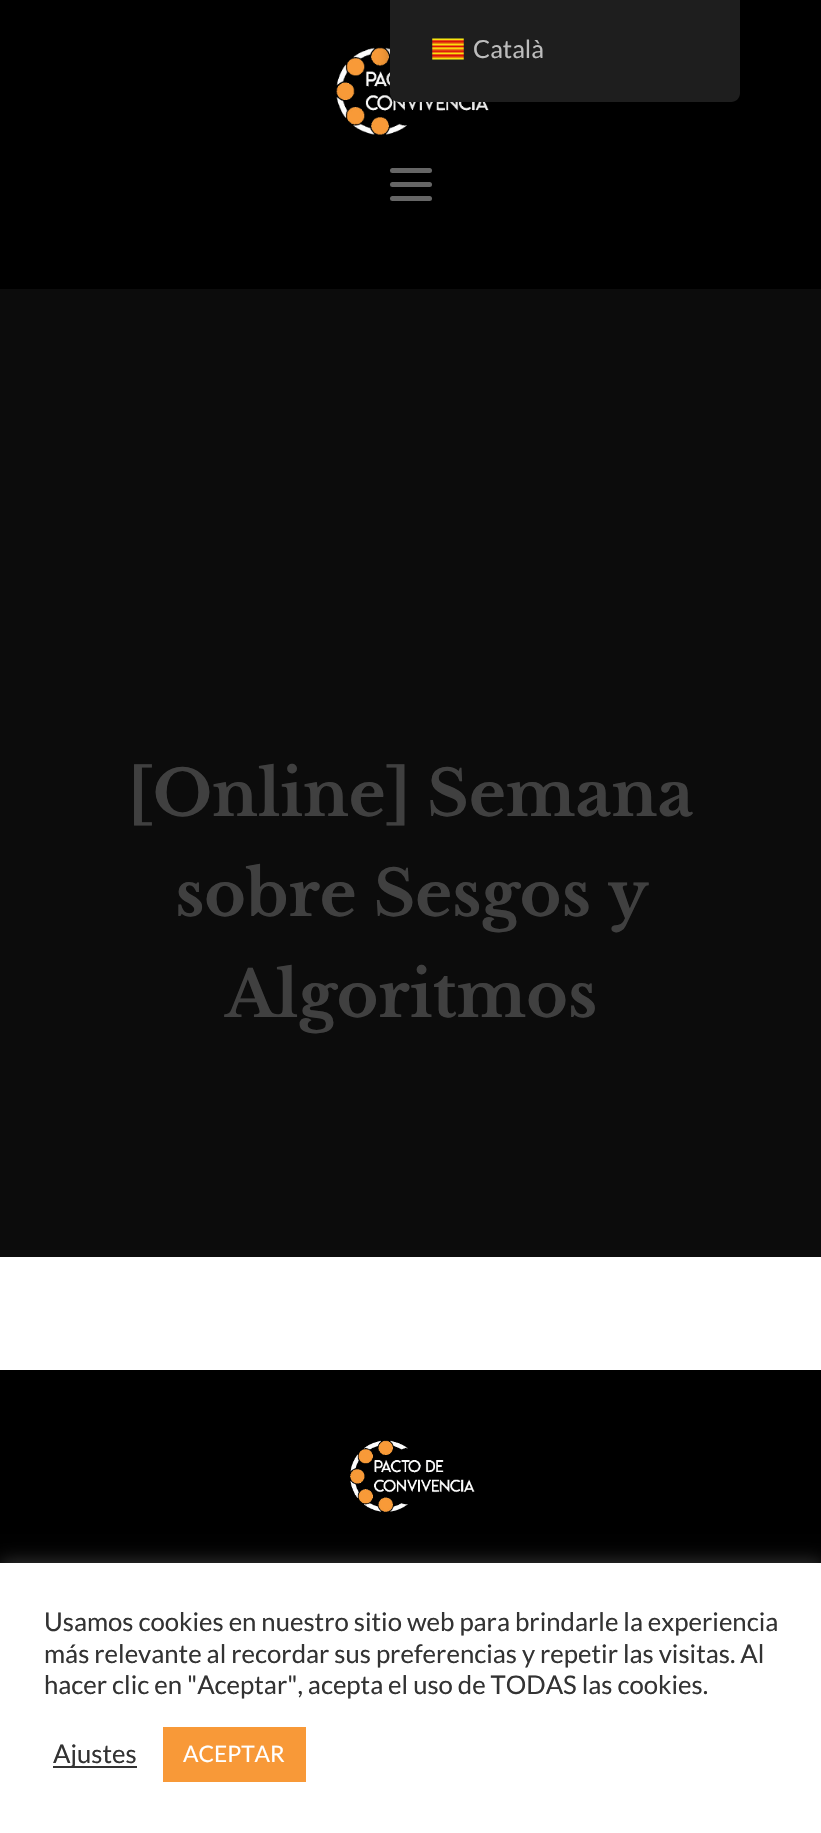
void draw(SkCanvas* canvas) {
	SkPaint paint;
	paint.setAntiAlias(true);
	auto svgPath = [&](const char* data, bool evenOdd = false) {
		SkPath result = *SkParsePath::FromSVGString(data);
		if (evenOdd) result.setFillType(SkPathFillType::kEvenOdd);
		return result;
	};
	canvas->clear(0xffffffff);
	paint.setColor(0xff000000);
	canvas->drawRect(SkRect::MakeXYWH(0, 0, 821, 289), paint);
	canvas->drawImageRect(SkImages::DeferredFromEncodedData(SkData::MakeFromFileName("img1.png")), SkRect::MakeXYWH(336, 47, 153, 88), SkSamplingOptions());
	paint.setColor(0xff666666);
	canvas->drawRoundRect(SkRect::MakeXYWH(390, 168, 42, 5), 2.5, 2.5, paint);
	canvas->drawRoundRect(SkRect::MakeXYWH(390, 182, 42, 5), 2.5, 2.5, paint);
	canvas->drawRoundRect(SkRect::MakeXYWH(390, 196, 42, 5), 2.5, 2.5, paint);
	paint.setColor(0x40000000);
	paint.setMaskFilter(SkMaskFilter::MakeBlur(kNormal_SkBlurStyle, 7));
	canvas->drawRoundRect(SkRect::MakeXYWH(390, 0, 350, 102), 9, 9, paint);
	paint.setMaskFilter(nullptr);
	paint.setColor(0xff1e1e1e);
	canvas->drawPath(svgPath("M390 0H740V93C740 98 736 102 731 102H399C394 102 390 98 390 93Z"), paint);
	canvas->drawImageRect(SkImages::DeferredFromEncodedData(SkData::MakeFromFileName("img2.png")), SkRect::MakeXYWH(432, 38, 32, 22), SkSamplingOptions());
	SkFont f1(fontMgr->matchFamilyStyle("Lato", SkFontStyle::Normal()), 25);
	f1.setSubpixel(true);
	paint.setColor(0xffbdbdbd);
	canvas->drawString("Català", 473, 58, f1, paint);
	paint.setColor(0xff0c0c0c);
	canvas->drawRect(SkRect::MakeXYWH(0, 289, 821, 968), paint);
	SkFont f2(fontMgr->matchFamilyStyle("Libre Baskerville", SkFontStyle::Bold()), 63);
	f2.setSubpixel(true);
	paint.setColor(0xff404040);
	canvas->drawString("[Online] Semana", 128, 816, f2, paint);
	canvas->drawString("sobre Sesgos y", 175, 916, f2, paint);
	canvas->drawString("Algoritmos", 225, 1017, f2, paint);
	paint.setColor(0xff000000);
	canvas->drawRect(SkRect::MakeXYWH(0, 1370, 821, 193), paint);
	canvas->drawImageRect(SkImages::DeferredFromEncodedData(SkData::MakeFromFileName("img3.png")), SkRect::MakeXYWH(350, 1440, 125, 72), SkSamplingOptions());
	paint.setColor(0x4dacabab);
	paint.setMaskFilter(SkMaskFilter::MakeBlur(kNormal_SkBlurStyle, 9));
	canvas->drawRect(SkRect::MakeXYWH(0, 1561, 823, 271), paint);
	paint.setMaskFilter(nullptr);
	paint.setColor(0xffffffff);
	canvas->drawRect(SkRect::MakeXYWH(0, 1563, 821, 270), paint);
	SkFont f3(fontMgr->matchFamilyStyle("Lato", SkFontStyle::Normal()), 25.7);
	f3.setSubpixel(true);
	paint.setColor(0xff333333);
	canvas->drawString("Usamos cookies en nuestro sitio web para brindarle la experiencia", 44, 1631, f3, paint);
	canvas->drawString("más relevante al recordar sus preferencias y repetir las visitas. Al", 44, 1663, f3, paint);
	canvas->drawString("hacer clic en \"Aceptar\", acepta el uso de TODAS las cookies.", 44, 1694, f3, paint);
	canvas->drawRect(SkRect::MakeXYWH(53, 1766, 84, 2), paint);
	canvas->drawString("Ajustes", 53, 1763, f3, paint);
	paint.setColor(0xfff89938);
	canvas->drawRect(SkRect::MakeXYWH(163, 1727, 143, 55), paint);
	SkFont f4(fontMgr->matchFamilyStyle("Lato", SkFontStyle::Normal()), 22.75);
	f4.setSubpixel(true);
	paint.setColor(0xffffffff);
	canvas->drawString("ACEPTAR", 183, 1762, f4, paint);
}
